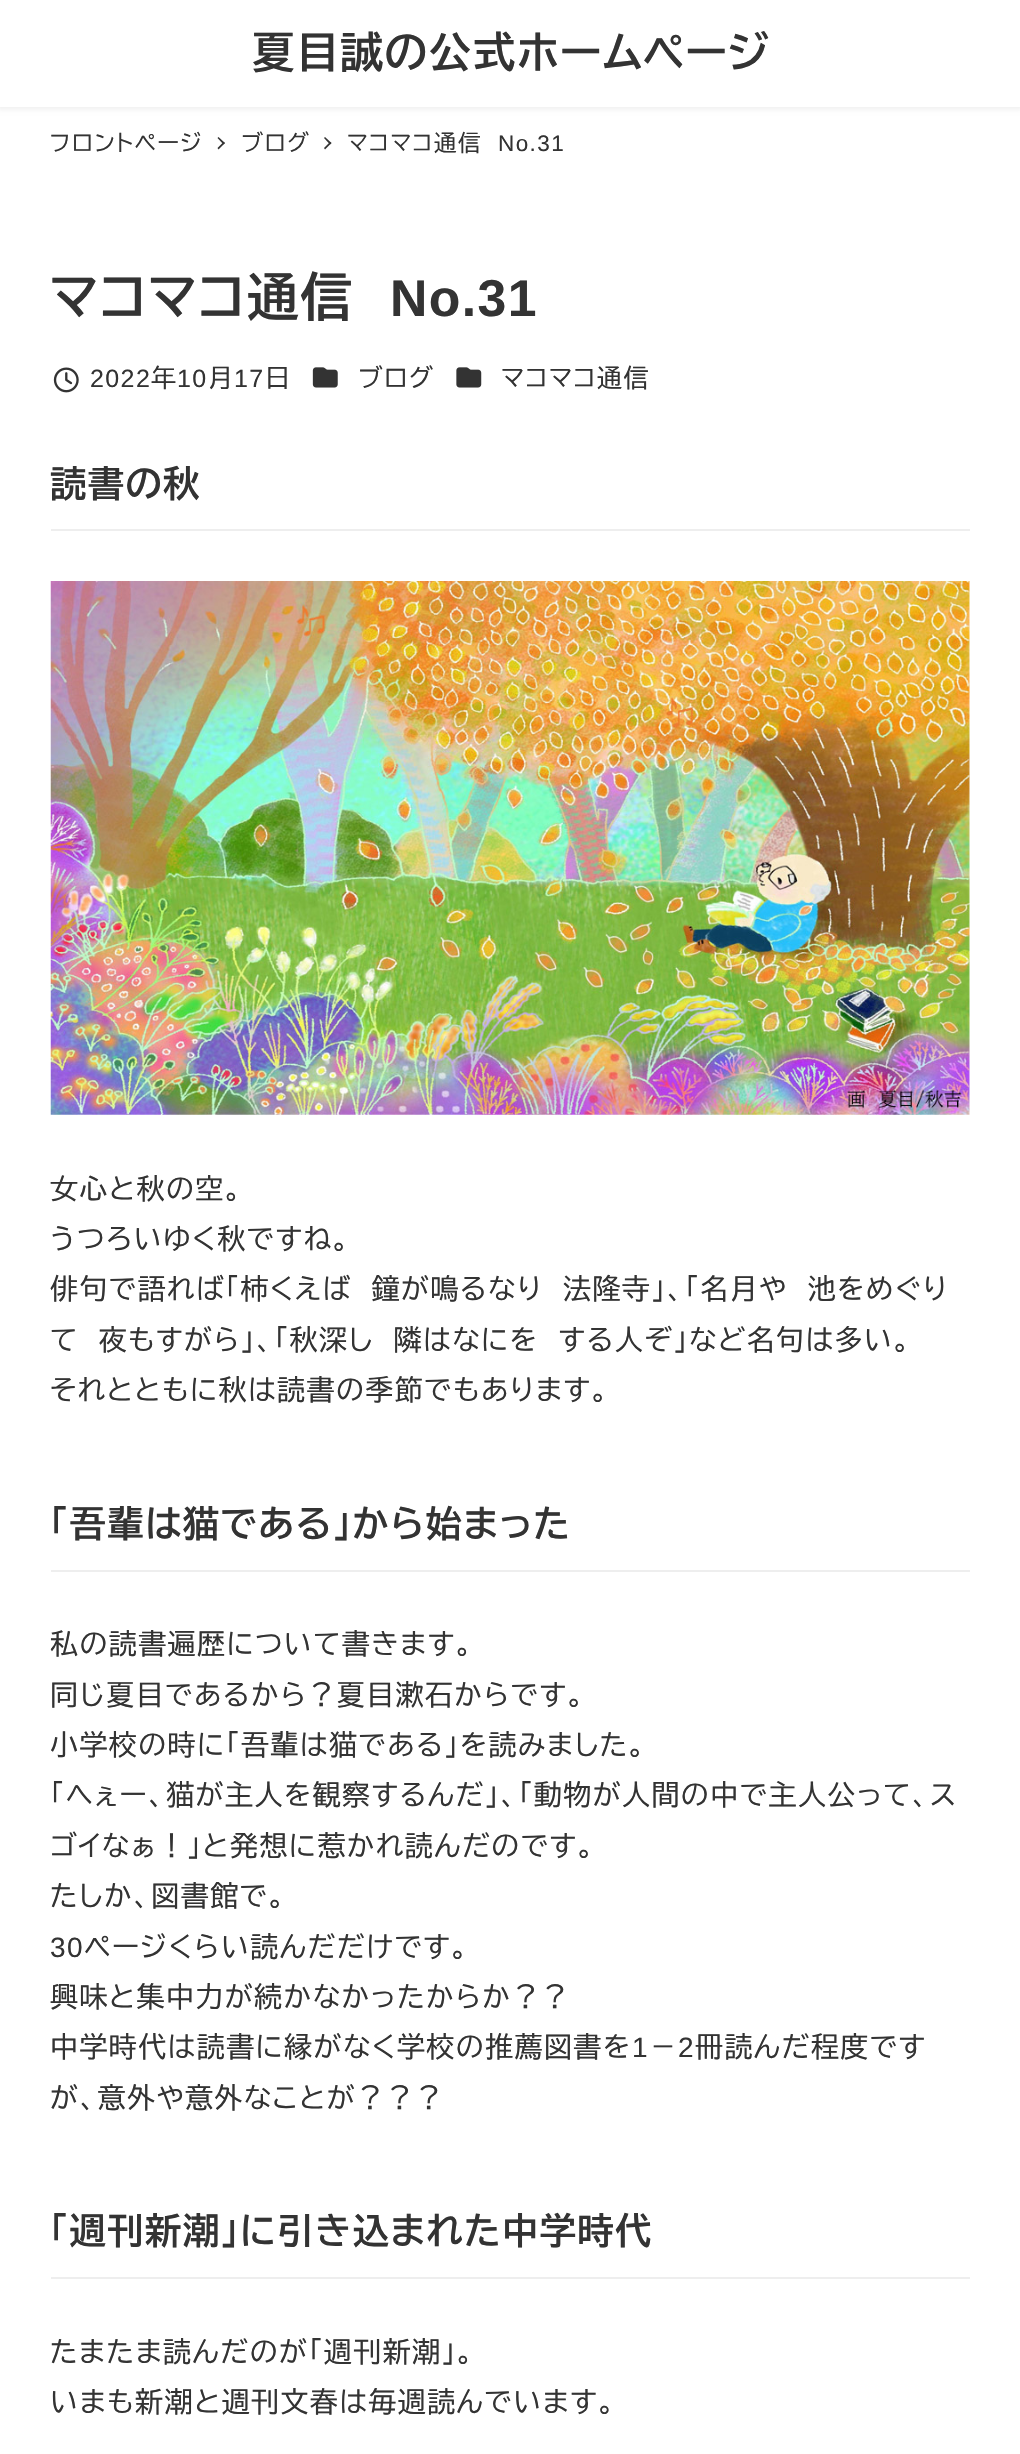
void draw(SkCanvas* canvas) {
	SkPaint paint;
	paint.setAntiAlias(true);
	auto spacedText = [&](const char* s, float x, float y, const SkFont& font, const SkPaint& ink, float letter, float word) {
		std::vector<SkGlyphID> glyphs(font.countText(s, strlen(s), SkTextEncoding::kUTF8));
		std::vector<float> xs(glyphs.size());
		font.textToGlyphs(s, strlen(s), SkTextEncoding::kUTF8, glyphs);
		font.getXPos(glyphs, xs, x);
		float extra = 0;
		for (size_t i = 0; i < glyphs.size(); i++) {
			xs[i] += extra;
			extra += letter + word * (glyphs[i] == font.unicharToGlyph(' '));
		}
		canvas->drawTextBlob(SkTextBlob::MakeFromPosHGlyphs(glyphs, xs, y, font), 0, 0, ink);
	};
	auto svgPath = [&](const char* data, bool evenOdd = false) {
		SkPath result = *SkParsePath::FromSVGString(data);
		if (evenOdd) result.setFillType(SkPathFillType::kEvenOdd);
		return result;
	};
	canvas->clear(0xffffffff);
	paint.setColor(0x0d000000);
	paint.setMaskFilter(SkMaskFilter::MakeBlur(kNormal_SkBlurStyle, 2));
	canvas->drawRect(SkRect::MakeXYWH(-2, 0, 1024, 110), paint);
	paint.setMaskFilter(nullptr);
	paint.setColor(0xffffffff);
	canvas->drawRect(SkRect::MakeXYWH(0, 0, 1020, 107), paint);
	SkFont f1(fontMgr->matchFamilyStyle("BIZ UDPGothic", SkFontStyle::Bold()), 42.75);
	f1.setSubpixel(true);
	paint.setColor(0xff333333);
	spacedText("夏目誠の公式ホームページ", 252, 68, f1, paint, 1.4, 0);
	SkFont f2(fontMgr->matchFamilyStyle("BIZ UDPGothic", SkFontStyle::Normal()), 22.5);
	f2.setSubpixel(true);
	spacedText("フロントページ", 50, 151, f2, paint, 1.4, 0);
	canvas->drawPath(svgPath("M218.5 137L225 143L223.5 144.5L217.5 138Z"), paint);
	canvas->drawPath(svgPath("M223.5 142L225 143L218.5 149.5L217.5 148Z"), paint);
	spacedText("ブログ", 241, 151, f2, paint, 1.4, 0);
	canvas->drawPath(svgPath("M325 137L331.5 143L330 144.5L324 138Z"), paint);
	canvas->drawPath(svgPath("M330 142L331.5 143L325 149.5L324 148Z"), paint);
	spacedText("マコマコ通信", 347, 151, f2, paint, 1.4, 0);
	SkFont f3(fontMgr->matchFamilyStyle("Liberation Sans", SkFontStyle::Normal()), 22.5);
	f3.setSubpixel(true);
	spacedText("No.31", 498, 151, f3, paint, 1.4, 0);
	SkFont f4(fontMgr->matchFamilyStyle("BIZ UDPGothic", SkFontStyle::Bold()), 51.75);
	f4.setSubpixel(true);
	spacedText("マコマコ通信", 50, 316, f4, paint, 1.4, 0);
	SkFont f5(fontMgr->matchFamilyStyle("Liberation Sans", SkFontStyle::Bold()), 51.75);
	f5.setSubpixel(true);
	spacedText("No.31", 390, 316, f5, paint, 1.4, 0);
	canvas->drawImageRect(SkImages::DeferredFromEncodedData(SkData::MakeFromFileName("img1.png")), SkRect::MakeXYWH(53, 367, 26, 26), SkSamplingOptions());
	SkFont f6(fontMgr->matchFamilyStyle("Liberation Sans", SkFontStyle::Normal()), 25);
	f6.setSubpixel(true);
	spacedText("2022", 90, 387, f6, paint, 1.4, 0);
	SkFont f7(fontMgr->matchFamilyStyle("BIZ UDPGothic", SkFontStyle::Normal()), 25);
	f7.setSubpixel(true);
	spacedText("年", 151, 387, f7, paint, 1.4, 0);
	spacedText("10", 177, 387, f6, paint, 1.4, 0);
	spacedText("月", 208, 387, f7, paint, 1.4, 0);
	spacedText("17", 234, 387, f6, paint, 1.4, 0);
	spacedText("日", 265, 387, f7, paint, 1.4, 0);
	canvas->drawImageRect(SkImages::DeferredFromEncodedData(SkData::MakeFromFileName("img2.png")), SkRect::MakeXYWH(312, 367, 26, 21), SkSamplingOptions());
	spacedText("ブログ", 358, 387, f7, paint, 1.4, 0);
	canvas->drawImageRect(SkImages::DeferredFromEncodedData(SkData::MakeFromFileName("img3.png")), SkRect::MakeXYWH(456, 367, 26, 21), SkSamplingOptions());
	spacedText("マコマコ通信", 501, 387, f7, paint, 1.4, 0);
	paint.setColor(0xffeeeeee);
	canvas->drawRect(SkRect::MakeXYWH(51, 529, 919, 2), paint);
	SkFont f8(fontMgr->matchFamilyStyle("BIZ UDPGothic", SkFontStyle::Bold()), 36.3);
	f8.setSubpixel(true);
	paint.setColor(0xff333333);
	spacedText("読書の秋", 50, 497, f8, paint, 1.4, 0);
	canvas->drawImageRect(SkImages::DeferredFromEncodedData(SkData::MakeFromFileName("img4.png")), SkRect::MakeXYWH(50, 581, 920, 534), SkSamplingOptions());
	SkFont f9(fontMgr->matchFamilyStyle("BIZ UDPGothic", SkFontStyle::Normal()), 28);
	f9.setSubpixel(true);
	spacedText("女心と秋の空。", 50, 1199, f9, paint, 1.4, 0);
	spacedText("うつろいゆく秋ですね。", 50, 1249, f9, paint, 1.4, 0);
	spacedText("俳句で語れば「柿くえば　鐘が鳴るなり　法隆寺」、「名月や　池をめぐり", 50, 1299, f9, paint, 1.4, 0);
	spacedText("て　夜もすがら」、「秋深し　隣はなにを　する人ぞ」など名句は多い。", 50, 1350, f9, paint, 1.4, 0);
	spacedText("それとともに秋は読書の季節でもあります。", 50, 1400, f9, paint, 1.4, 0);
	paint.setColor(0xffeeeeee);
	canvas->drawRect(SkRect::MakeXYWH(51, 1570, 919, 2), paint);
	paint.setColor(0xff333333);
	spacedText("「吾輩は猫である」から始まった", 50, 1537, f8, paint, 1.4, 0);
	spacedText("私の読書遍歴について書きます。", 50, 1654, f9, paint, 1.4, 0);
	spacedText("同じ夏目であるから？夏目漱石からです。", 50, 1705, f9, paint, 1.4, 0);
	spacedText("小学校の時に「吾輩は猫である」を読みました。", 50, 1755, f9, paint, 1.4, 0);
	spacedText("「へぇー、猫が主人を観察するんだ」、「動物が人間の中で主人公って、ス", 50, 1805, f9, paint, 1.4, 0);
	spacedText("ゴイなぁ！」と発想に惹かれ読んだのです。", 50, 1856, f9, paint, 1.4, 0);
	spacedText("たしか、図書館で。", 50, 1906, f9, paint, 1.4, 0);
	SkFont f10(fontMgr->matchFamilyStyle("Liberation Sans", SkFontStyle::Normal()), 28);
	f10.setSubpixel(true);
	spacedText("30", 50, 1957, f10, paint, 1.4, 0);
	spacedText("ページくらい読んだだけです。", 84, 1957, f9, paint, 1.4, 0);
	spacedText("興味と集中力が続かなかったからか？？", 50, 2007, f9, paint, 1.4, 0);
	spacedText("中学時代は読書に縁がなく学校の推薦図書を", 50, 2057, f9, paint, 1.4, 0);
	spacedText("1", 632, 2057, f10, paint, 1.4, 0);
	spacedText("－", 649, 2057, f9, paint, 1.4, 0);
	spacedText("2", 678, 2057, f10, paint, 1.4, 0);
	spacedText("冊読んだ程度です", 695, 2057, f9, paint, 1.4, 0);
	spacedText("が、意外や意外なことが？？？", 50, 2108, f9, paint, 1.4, 0);
	paint.setColor(0xffeeeeee);
	canvas->drawRect(SkRect::MakeXYWH(51, 2277, 919, 2), paint);
	paint.setColor(0xff333333);
	spacedText("「週刊新潮」に引き込まれた中学時代", 50, 2244, f8, paint, 1.4, 0);
	spacedText("たまたま読んだのが「週刊新潮」。", 50, 2362, f9, paint, 1.4, 0);
	spacedText("いまも新潮と週刊文春は毎週読んでいます。", 50, 2412, f9, paint, 1.4, 0);
}
